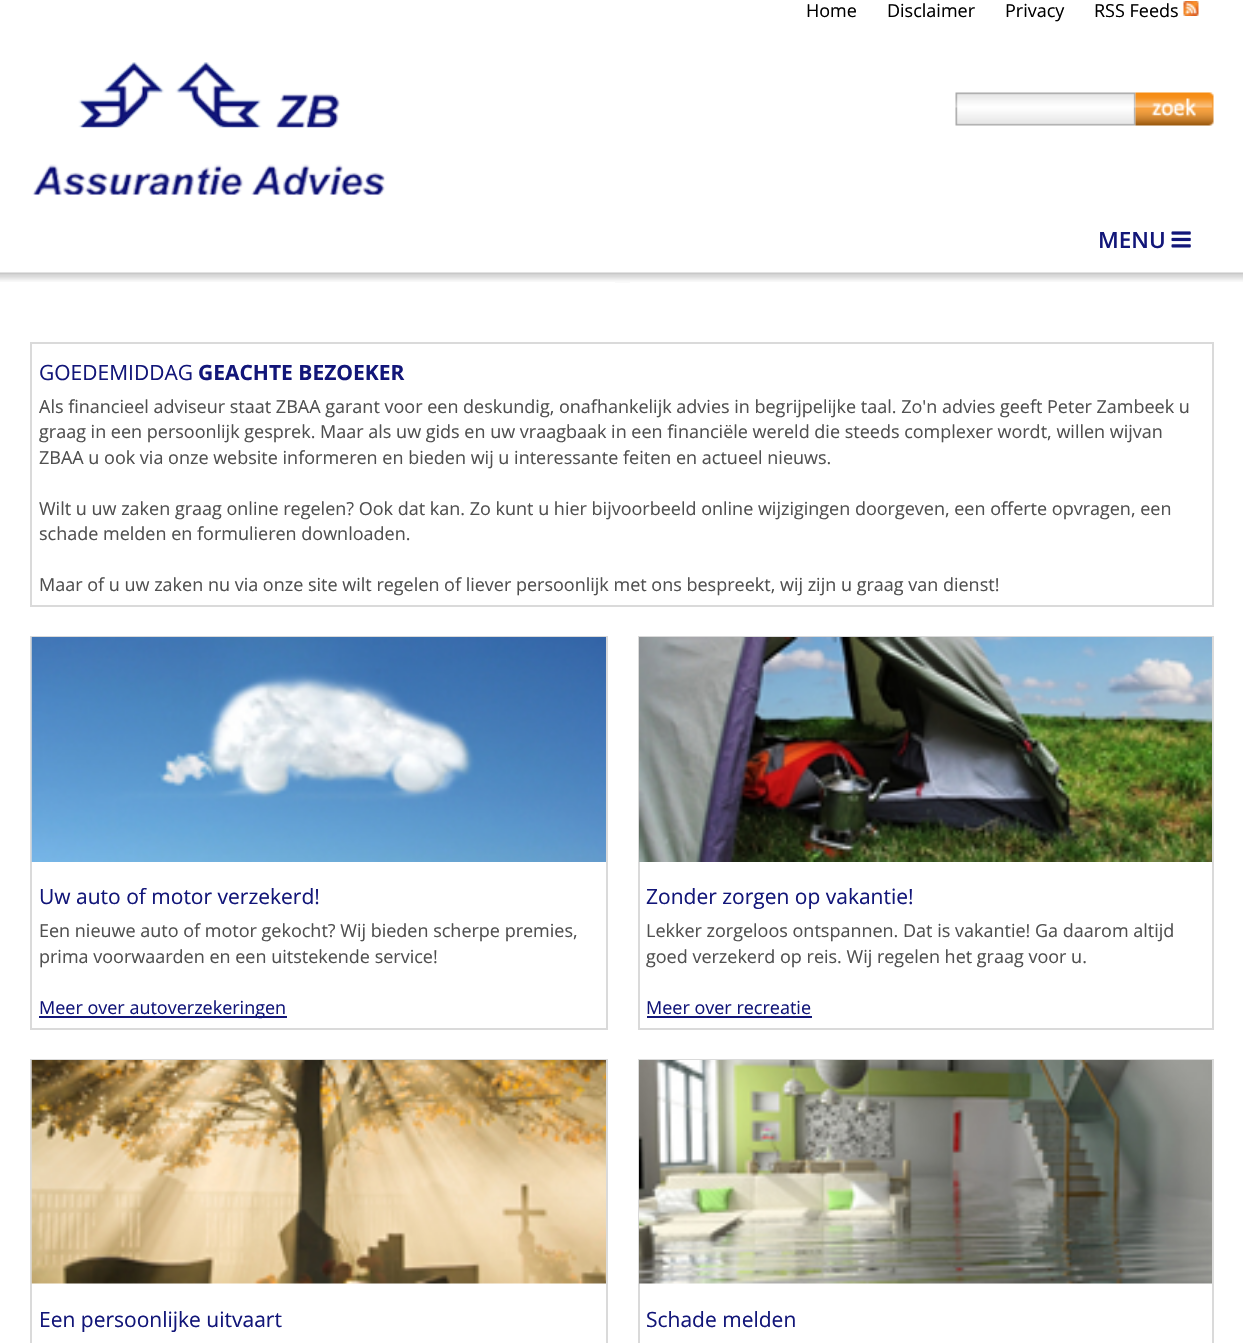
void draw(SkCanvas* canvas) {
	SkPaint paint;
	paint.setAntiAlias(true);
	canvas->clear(0xffffffff);
	SkFont f1(fontMgr->matchFamilyStyle("Open Sans", SkFontStyle::Normal()), 18);
	f1.setSubpixel(true);
	paint.setColor(0xff000000);
	canvas->drawString("Home", 806, 17, f1, paint);
	canvas->drawString("Disclaimer", 887, 17, f1, paint);
	canvas->drawString("Privacy", 1005, 17, f1, paint);
	canvas->drawString("RSS Feeds", 1094, 17, f1, paint);
	canvas->drawImageRect(SkImages::DeferredFromEncodedData(SkData::MakeFromFileName("img1.png")), SkRect::MakeXYWH(1183, 1, 16, 15), SkSamplingOptions());
	canvas->drawImageRect(SkImages::DeferredFromEncodedData(SkData::MakeFromFileName("img2.png")), SkRect::MakeXYWH(32, 62, 353, 133), SkSamplingOptions());
	canvas->drawImageRect(SkImages::DeferredFromEncodedData(SkData::MakeFromFileName("img3.png")), SkRect::MakeXYWH(955, 92, 181, 34), SkSamplingOptions());
	canvas->drawImageRect(SkImages::DeferredFromEncodedData(SkData::MakeFromFileName("img4.png")), SkRect::MakeXYWH(1135, 92, 79, 34), SkSamplingOptions());
	SkFont f2(fontMgr->matchFamilyStyle("Open Sans", SkFontStyle(600, SkFontStyle::kNormal_Width, SkFontStyle::kUpright_Slant)), 22.5);
	f2.setSubpixel(true);
	paint.setColor(0xff121679);
	canvas->drawString("MENU", 1098, 248, f2, paint);
	canvas->drawImageRect(SkImages::DeferredFromEncodedData(SkData::MakeFromFileName("img5.png")), SkRect::MakeXYWH(1171, 231, 20, 17), SkSamplingOptions());
	paint.setColor(0xffdadada);
	canvas->drawRect(SkRect::MakeXYWH(1212, 342, 2, 264), paint);
	canvas->drawRect(SkRect::MakeXYWH(30, 605, 1184, 2), paint);
	canvas->drawRect(SkRect::MakeXYWH(30, 342, 2, 264), paint);
	canvas->drawRect(SkRect::MakeXYWH(32, 342, 1180, 2), paint);
	SkFont f3(fontMgr->matchFamilyStyle("Open Sans", SkFontStyle::Normal()), 21);
	f3.setSubpixel(true);
	paint.setColor(0xff121679);
	canvas->drawString("GOEDEMIDDAG", 39, 380, f3, paint);
	SkFont f4(fontMgr->matchFamilyStyle("Open Sans", SkFontStyle::Bold()), 21);
	f4.setSubpixel(true);
	canvas->drawString("GEACHTE BEZOEKER", 198, 380, f4, paint);
	paint.setColor(0xff505050);
	canvas->drawString("Als financieel adviseur staat ZBAA garant voor een deskundig, onafhankelijk advies in begrijpelijke taal. Zo'n advies geeft Peter Zambeek u", 39, 413, f1, paint);
	canvas->drawString("graag in een persoonlijk gesprek. Maar als uw gids en uw vraagbaak in een financiële wereld die steeds complexer wordt, willen wijvan", 39, 438, f1, paint);
	canvas->drawString("ZBAA u ook via onze website informeren en bieden wij u interessante feiten en actueel nieuws.", 39, 464, f1, paint);
	canvas->drawString("Wilt u uw zaken graag online regelen? Ook dat kan. Zo kunt u hier bijvoorbeeld online wijzigingen doorgeven, een offerte opvragen, een", 39, 515, f1, paint);
	canvas->drawString("schade melden en formulieren downloaden.", 39, 540, f1, paint);
	canvas->drawString("Maar of u uw zaken nu via onze site wilt regelen of liever persoonlijk met ons bespreekt, wij zijn u graag van dienst!", 39, 591, f1, paint);
	paint.setColor(0xffdadada);
	canvas->drawRect(SkRect::MakeXYWH(606, 636, 2, 393), paint);
	canvas->drawRect(SkRect::MakeXYWH(30, 1028, 578, 2), paint);
	canvas->drawRect(SkRect::MakeXYWH(30, 636, 2, 393), paint);
	canvas->drawRect(SkRect::MakeXYWH(32, 636, 574, 1), paint);
	canvas->drawImageRect(SkImages::DeferredFromEncodedData(SkData::MakeFromFileName("img6.png")), SkRect::MakeXYWH(31, 637, 575, 225), SkSamplingOptions());
	paint.setColor(0xff121679);
	canvas->drawString("Uw auto of motor verzekerd!", 39, 904, f3, paint);
	paint.setColor(0xff505050);
	canvas->drawString("Een nieuwe auto of motor gekocht? Wij bieden scherpe premies,", 39, 937, f1, paint);
	canvas->drawString("prima voorwaarden en een uitstekende service!", 39, 963, f1, paint);
	paint.setColor(0xff121679);
	canvas->drawRect(SkRect::MakeXYWH(39, 1016, 248, 2), paint);
	canvas->drawString("Meer over autoverzekeringen", 39, 1014, f1, paint);
	paint.setColor(0xffdadada);
	canvas->drawRect(SkRect::MakeXYWH(1212, 636, 2, 393), paint);
	canvas->drawRect(SkRect::MakeXYWH(638, 1028, 576, 2), paint);
	canvas->drawRect(SkRect::MakeXYWH(638, 636, 2, 393), paint);
	canvas->drawRect(SkRect::MakeXYWH(639, 636, 573, 1), paint);
	canvas->drawImageRect(SkImages::DeferredFromEncodedData(SkData::MakeFromFileName("img7.png")), SkRect::MakeXYWH(639, 637, 573, 225), SkSamplingOptions());
	paint.setColor(0xff121679);
	canvas->drawString("Zonder zorgen op vakantie!", 646, 904, f3, paint);
	paint.setColor(0xff505050);
	canvas->drawString("Lekker zorgeloos ontspannen. Dat is vakantie! Ga daarom altijd", 646, 937, f1, paint);
	canvas->drawString("goed verzekerd op reis. Wij regelen het graag voor u.", 646, 963, f1, paint);
	paint.setColor(0xff121679);
	canvas->drawString("Meer over recreatie", 646, 1014, f1, paint);
	canvas->drawRect(SkRect::MakeXYWH(647, 1016, 165, 2), paint);
	paint.setColor(0xffdadada);
	canvas->drawRect(SkRect::MakeXYWH(606, 1059, 2, 284), paint);
	canvas->drawRect(SkRect::MakeXYWH(30, 1059, 2, 284), paint);
	canvas->drawRect(SkRect::MakeXYWH(32, 1059, 574, 1), paint);
	canvas->drawImageRect(SkImages::DeferredFromEncodedData(SkData::MakeFromFileName("img8.png")), SkRect::MakeXYWH(31, 1060, 575, 224), SkSamplingOptions());
	paint.setColor(0xff121679);
	canvas->drawString("Een persoonlijke uitvaart", 39, 1327, f3, paint);
	paint.setColor(0xffdadada);
	canvas->drawRect(SkRect::MakeXYWH(1212, 1059, 2, 284), paint);
	canvas->drawRect(SkRect::MakeXYWH(638, 1059, 2, 284), paint);
	canvas->drawRect(SkRect::MakeXYWH(639, 1059, 573, 1), paint);
	canvas->drawImageRect(SkImages::DeferredFromEncodedData(SkData::MakeFromFileName("img9.png")), SkRect::MakeXYWH(639, 1060, 573, 224), SkSamplingOptions());
	paint.setColor(0xff121679);
	canvas->drawString("Schade melden", 646, 1327, f3, paint);
	canvas->drawImageRect(SkImages::DeferredFromEncodedData(SkData::MakeFromFileName("img10.png")), SkRect::MakeXYWH(0, 272, 621, 10), SkSamplingOptions());
	canvas->drawImageRect(SkImages::DeferredFromEncodedData(SkData::MakeFromFileName("img11.png")), SkRect::MakeXYWH(621, 272, 622, 10), SkSamplingOptions());
	paint.setColor(0xfffafafa);
	canvas->drawRect(SkRect::MakeXYWH(615, 282, 15, 1), paint);
}
